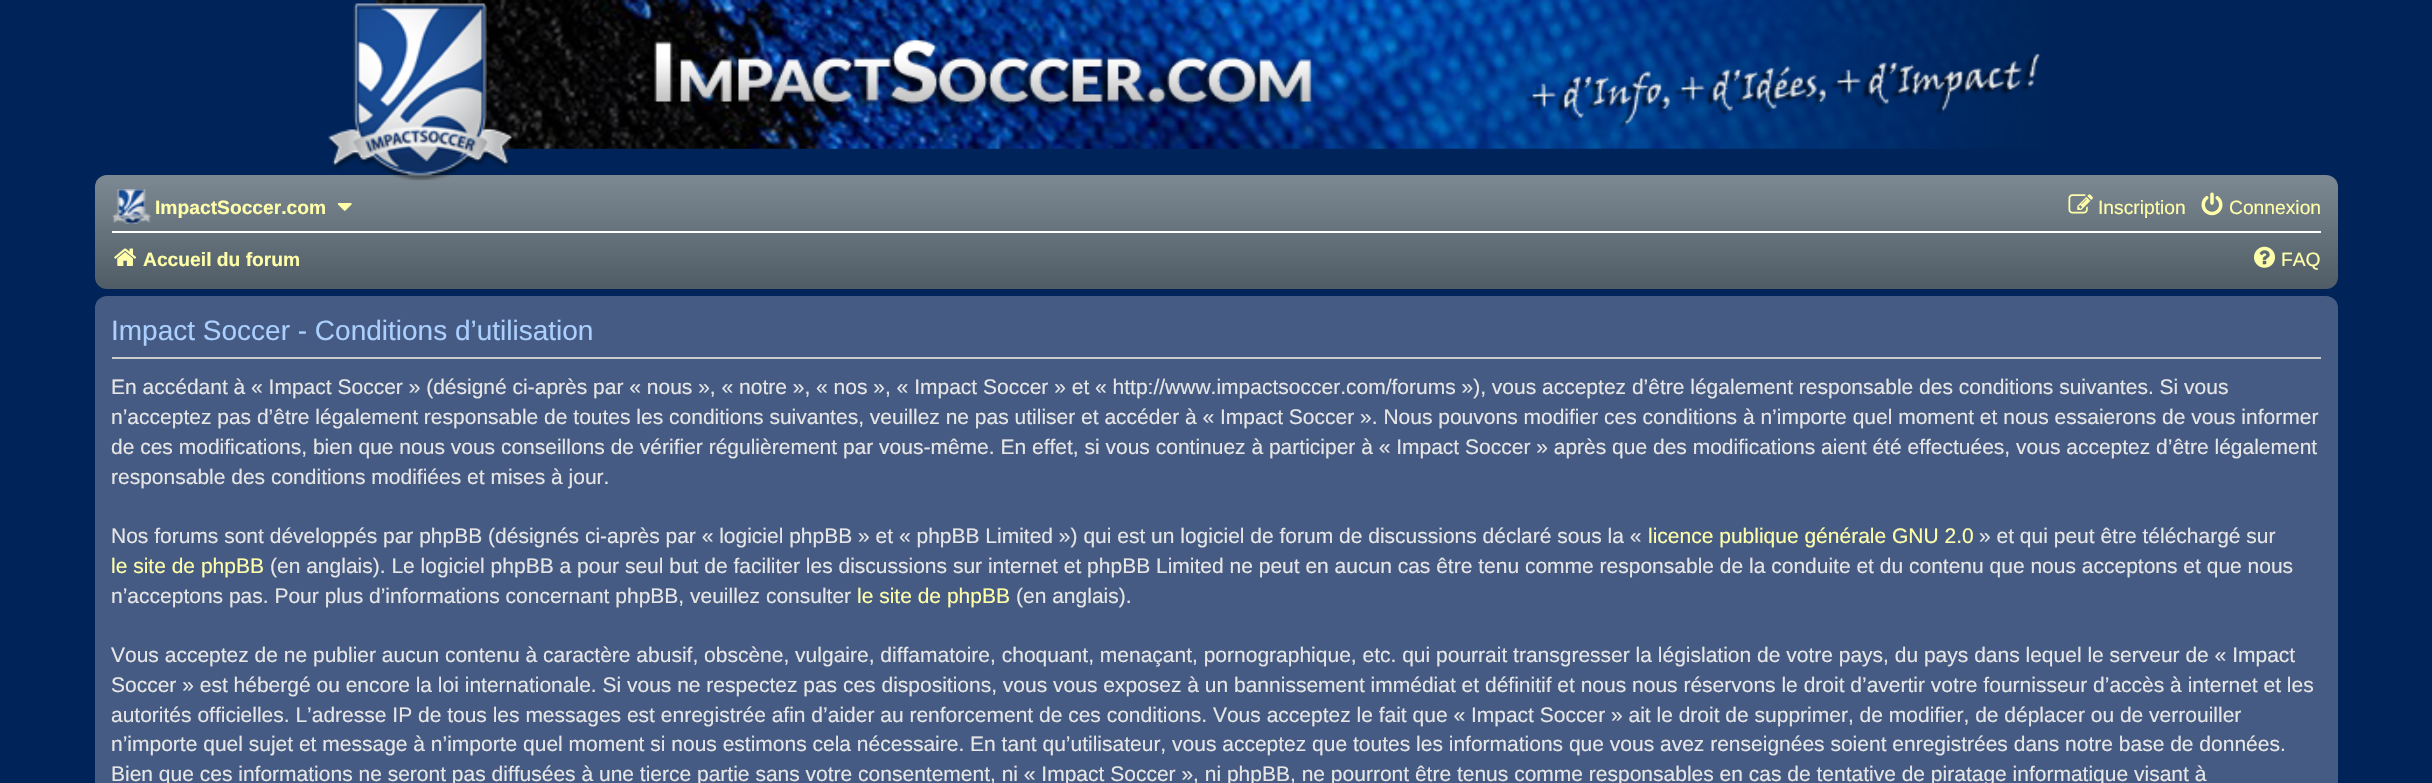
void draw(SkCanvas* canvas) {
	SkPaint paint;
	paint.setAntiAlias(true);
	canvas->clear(0xff002459);
	canvas->drawImageRect(SkImages::DeferredFromEncodedData(SkData::MakeFromFileName("img1.png")), SkRect::MakeXYWH(376, 0, 1665, 149), SkSamplingOptions());
	{
		const SkColor colors[] = {0xff7c8891, 0xff7c8891, 0xff505c65};
		const float stops[] = {0, 0.03, 1};
		const SkPoint ends[] = {{1216, 175}, {1216, 290}};
		paint.setShader(SkGradientShader::MakeLinear(ends, colors, stops, 3, SkTileMode::kClamp));
		paint.setAlpha(255);
	}
	canvas->drawRoundRect(SkRect::MakeXYWH(95, 175, 2243, 114), 12, 12, paint);
	canvas->drawImageRect(SkImages::DeferredFromEncodedData(SkData::MakeFromFileName("img2.png")), SkRect::MakeXYWH(328, 3, 185, 178), SkSamplingOptions());
	canvas->drawImageRect(SkImages::DeferredFromEncodedData(SkData::MakeFromFileName("img3.png")), SkRect::MakeXYWH(112, 189, 39, 35), SkSamplingOptions());
	SkFont f1(fontMgr->matchFamilyStyle("Liberation Sans", SkFontStyle::Bold()), 19.25);
	f1.setSubpixel(true);
	paint.setShader(nullptr);
	paint.setColor(0xffffffaa);
	canvas->drawString("ImpactSoccer.com", 155, 214, f1, paint);
	canvas->drawImageRect(SkImages::DeferredFromEncodedData(SkData::MakeFromFileName("img4.png")), SkRect::MakeXYWH(337, 203, 15, 8), SkSamplingOptions());
	canvas->drawImageRect(SkImages::DeferredFromEncodedData(SkData::MakeFromFileName("img5.png")), SkRect::MakeXYWH(2068, 194, 25, 20), SkSamplingOptions());
	SkFont f2(fontMgr->matchFamilyStyle("Liberation Sans", SkFontStyle::Normal()), 19.25);
	f2.setSubpixel(true);
	canvas->drawString("Inscription", 2098, 214, f2, paint);
	canvas->drawImageRect(SkImages::DeferredFromEncodedData(SkData::MakeFromFileName("img6.png")), SkRect::MakeXYWH(2201, 192, 22, 24), SkSamplingOptions());
	canvas->drawString("Connexion", 2229, 214, f2, paint);
	paint.setColor(0xffffffff);
	canvas->drawRect(SkRect::MakeXYWH(112, 231, 2209, 2), paint);
	canvas->drawImageRect(SkImages::DeferredFromEncodedData(SkData::MakeFromFileName("img7.png")), SkRect::MakeXYWH(114, 248, 23, 18), SkSamplingOptions());
	paint.setColor(0xffffffaa);
	canvas->drawString("Accueil du forum", 143, 266, f1, paint);
	canvas->drawImageRect(SkImages::DeferredFromEncodedData(SkData::MakeFromFileName("img8.png")), SkRect::MakeXYWH(2254, 246, 21, 22), SkSamplingOptions());
	canvas->drawString("FAQ", 2281, 266, f2, paint);
	paint.setColor(0xff455b83);
	canvas->drawRoundRect(SkRect::MakeXYWH(95, 296, 2243, 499), 12, 12, paint);
	paint.setColor(0xffcccccc);
	canvas->drawRect(SkRect::MakeXYWH(112, 357, 2209, 2), paint);
	SkFont f3(fontMgr->matchFamilyStyle("Liberation Sans", SkFontStyle::Normal()), 28);
	f3.setSubpixel(true);
	paint.setColor(0xffabcfff);
	canvas->drawString("Impact Soccer - Conditions d’utilisation", 111, 340, f3, paint);
	SkFont f4(fontMgr->matchFamilyStyle("Liberation Sans", SkFontStyle::Normal()), 21);
	f4.setSubpixel(true);
	paint.setColor(0xffe6e6e6);
	canvas->drawString("En accédant à « Impact Soccer » (désigné ci-après par « nous », « notre », « nos », « Impact Soccer » et « http://www.impactsoccer.com/forums »), vous acceptez d’être légalement responsable des conditions suivantes. Si vous", 111, 394, f4, paint);
	canvas->drawString("n’acceptez pas d’être légalement responsable de toutes les conditions suivantes, veuillez ne pas utiliser et accéder à « Impact Soccer ». Nous pouvons modifier ces conditions à n’importe quel moment et nous essaierons de vous informer", 111, 424, f4, paint);
	canvas->drawString("de ces modifications, bien que nous vous conseillons de vérifier régulièrement par vous-même. En effet, si vous continuez à participer à « Impact Soccer » après que des modifications aient été effectuées, vous acceptez d’être légalement", 111, 454, f4, paint);
	canvas->drawString("responsable des conditions modifiées et mises à jour.", 111, 484, f4, paint);
	canvas->drawString("Nos forums sont développés par phpBB (désignés ci-après par « logiciel phpBB » et « phpBB Limited ») qui est un logiciel de forum de discussions déclaré sous la «", 111, 543, f4, paint);
	paint.setColor(0xffffffaa);
	canvas->drawString("licence publique générale GNU 2.0", 1648, 543, f4, paint);
	paint.setColor(0xffe6e6e6);
	canvas->drawString("» et qui peut être téléchargé sur", 1979, 543, f4, paint);
	paint.setColor(0xffffffaa);
	canvas->drawString("le site de phpBB", 111, 573, f4, paint);
	paint.setColor(0xffe6e6e6);
	canvas->drawString("(en anglais). Le logiciel phpBB a pour seul but de faciliter les discussions sur internet et phpBB Limited ne peut en aucun cas être tenu comme responsable de la conduite et du contenu que nous acceptons et que nous", 270, 573, f4, paint);
	canvas->drawString("n’acceptons pas. Pour plus d’informations concernant phpBB, veuillez consulter", 111, 603, f4, paint);
	paint.setColor(0xffffffaa);
	canvas->drawString("le site de phpBB", 857, 603, f4, paint);
	paint.setColor(0xffe6e6e6);
	canvas->drawString("(en anglais).", 1016, 603, f4, paint);
	canvas->drawString("Vous acceptez de ne publier aucun contenu à caractère abusif, obscène, vulgaire, diffamatoire, choquant, menaçant, pornographique, etc. qui pourrait transgresser la législation de votre pays, du pays dans lequel le serveur de « Impact", 111, 662, f4, paint);
	canvas->drawString("Soccer » est hébergé ou encore la loi internationale. Si vous ne respectez pas ces dispositions, vous vous exposez à un bannissement immédiat et définitif et nous nous réservons le droit d’avertir votre fournisseur d’accès à internet et les", 111, 692, f4, paint);
	canvas->drawString("autorités officielles. L’adresse IP de tous les messages est enregistrée afin d’aider au renforcement de ces conditions. Vous acceptez le fait que « Impact Soccer » ait le droit de supprimer, de modifier, de déplacer ou de verrouiller", 111, 722, f4, paint);
	canvas->drawString("n’importe quel sujet et message à n’importe quel moment si nous estimons cela nécessaire. En tant qu’utilisateur, vous acceptez que toutes les informations que vous avez renseignées soient enregistrées dans notre base de données.", 111, 751, f4, paint);
	canvas->drawString("Bien que ces informations ne seront pas diffusées à une tierce partie sans votre consentement, ni « Impact Soccer », ni phpBB, ne pourront être tenus comme responsables en cas de tentative de piratage informatique visant à", 111, 781, f4, paint);
}
